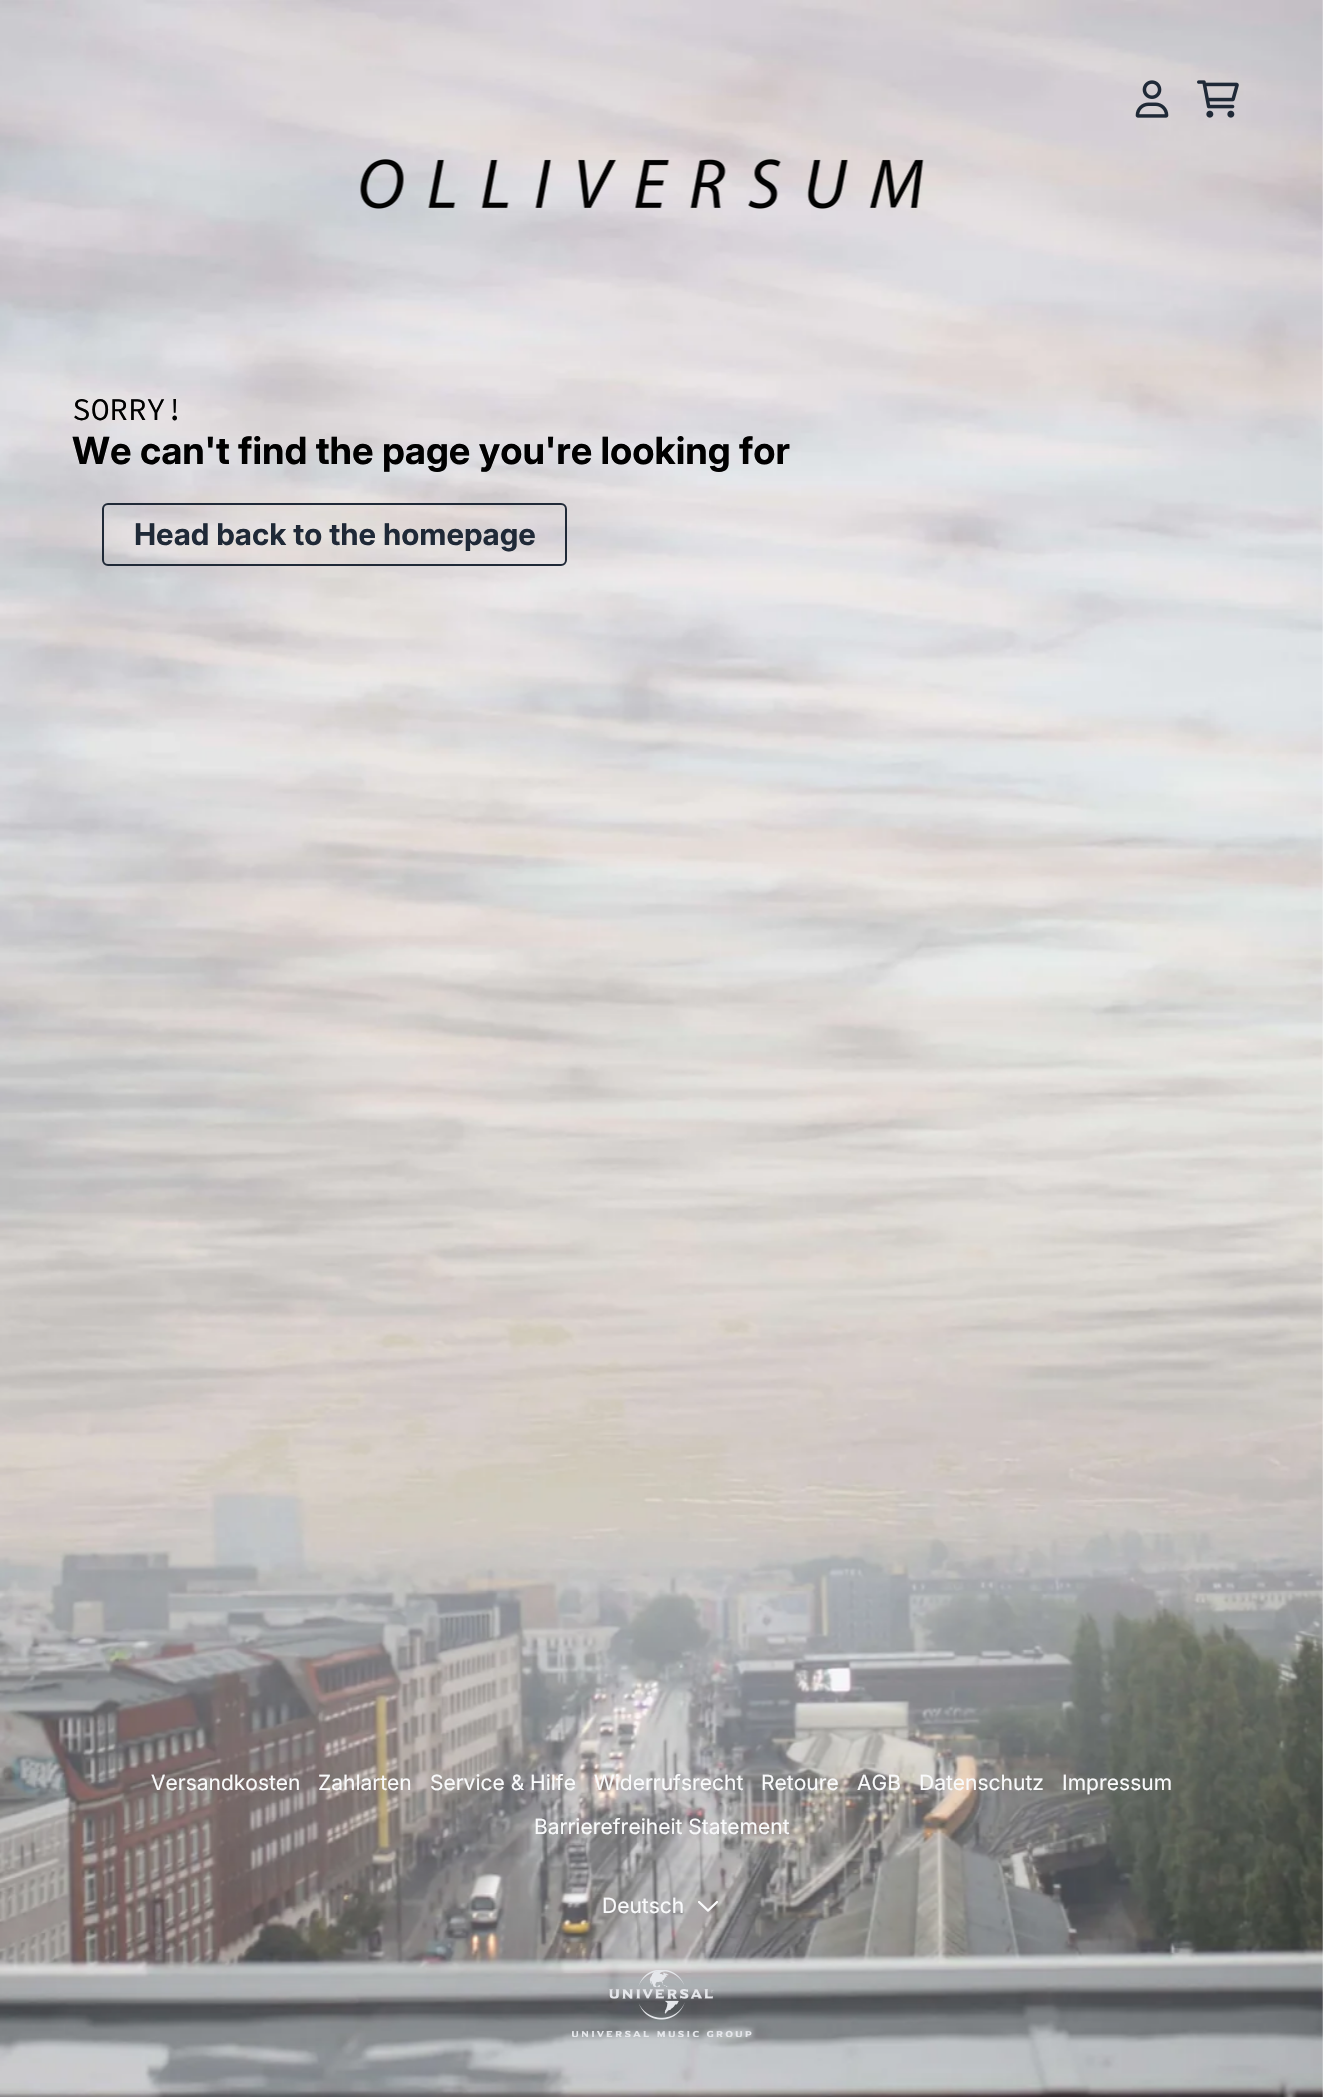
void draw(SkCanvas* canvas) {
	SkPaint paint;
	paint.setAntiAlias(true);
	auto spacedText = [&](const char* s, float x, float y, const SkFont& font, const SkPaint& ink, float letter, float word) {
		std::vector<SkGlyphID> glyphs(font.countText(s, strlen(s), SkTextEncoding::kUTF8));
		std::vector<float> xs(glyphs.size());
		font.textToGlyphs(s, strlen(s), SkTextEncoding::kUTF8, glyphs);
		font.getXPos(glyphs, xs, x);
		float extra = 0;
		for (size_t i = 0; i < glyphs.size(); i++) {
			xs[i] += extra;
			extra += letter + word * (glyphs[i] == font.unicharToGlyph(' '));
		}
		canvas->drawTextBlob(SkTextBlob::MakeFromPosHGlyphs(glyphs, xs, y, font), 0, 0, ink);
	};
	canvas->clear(0xffffffff);
	canvas->drawImageRect(SkImages::DeferredFromEncodedData(SkData::MakeFromFileName("img1.png")), SkRect::MakeXYWH(0, 0, 1323, 2097), SkSamplingOptions());
	canvas->drawImageRect(SkImages::DeferredFromEncodedData(SkData::MakeFromFileName("img2.png")), SkRect::MakeXYWH(1135, 80, 34, 38), SkSamplingOptions());
	canvas->drawImageRect(SkImages::DeferredFromEncodedData(SkData::MakeFromFileName("img3.png")), SkRect::MakeXYWH(1197, 80, 42, 38), SkSamplingOptions());
	canvas->drawImageRect(SkImages::DeferredFromEncodedData(SkData::MakeFromFileName("img4.png")), SkRect::MakeXYWH(360, 159, 564, 50), SkSamplingOptions());
	SkFont f1(fontMgr->matchFamilyStyle("Source Code Pro", SkFontStyle::Normal()), 31.5);
	f1.setSubpixel(true);
	paint.setColor(0xff000000);
	spacedText("SORRY!", 72, 420, f1, paint, -0.25, 0);
	SkFont f2(fontMgr->matchFamilyStyle("Inter", SkFontStyle::Bold()), 37.5);
	f2.setSubpixel(true);
	canvas->drawString("We can't find the page you're looking for", 72, 464, f2, paint);
	paint.setStroke(true);
	paint.setStrokeWidth(2);
	paint.setColor(0xff1f2937);
	canvas->drawRoundRect(SkRect::MakeXYWH(103, 504, 463, 61), 5, 5, paint);
	SkFont f3(fontMgr->matchFamilyStyle("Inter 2", SkFontStyle::Bold()), 30);
	f3.setSubpixel(true);
	paint.setStroke(false);
	canvas->drawString("Head back to the homepage", 134, 545, f3, paint);
	SkFont f4(fontMgr->matchFamilyStyle("Inter", SkFontStyle::Normal()), 21);
	f4.setSubpixel(true);
	paint.setColor(0xfff9fafb);
	canvas->drawString("Versandkosten", 151, 1790, f4, paint);
	canvas->drawString("Zahlarten", 318, 1790, f4, paint);
	canvas->drawString("Service & Hilfe", 430, 1790, f4, paint);
	canvas->drawString("Widerrufsrecht", 594, 1790, f4, paint);
	canvas->drawString("Retoure", 761, 1790, f4, paint);
	canvas->drawString("AGB", 857, 1790, f4, paint);
	canvas->drawString("Datenschutz", 919, 1790, f4, paint);
	canvas->drawString("Impressum", 1062, 1790, f4, paint);
	canvas->drawString("Barrierefreiheit Statement", 534, 1834, f4, paint);
	canvas->drawString("Deutsch", 602, 1913, f4, paint);
	canvas->drawImageRect(SkImages::DeferredFromEncodedData(SkData::MakeFromFileName("img5.png")), SkRect::MakeXYWH(698, 1901, 20, 11), SkSamplingOptions());
	canvas->drawImageRect(SkImages::DeferredFromEncodedData(SkData::MakeFromFileName("img6.png")), SkRect::MakeXYWH(572, 1970, 180, 67), SkSamplingOptions());
}
